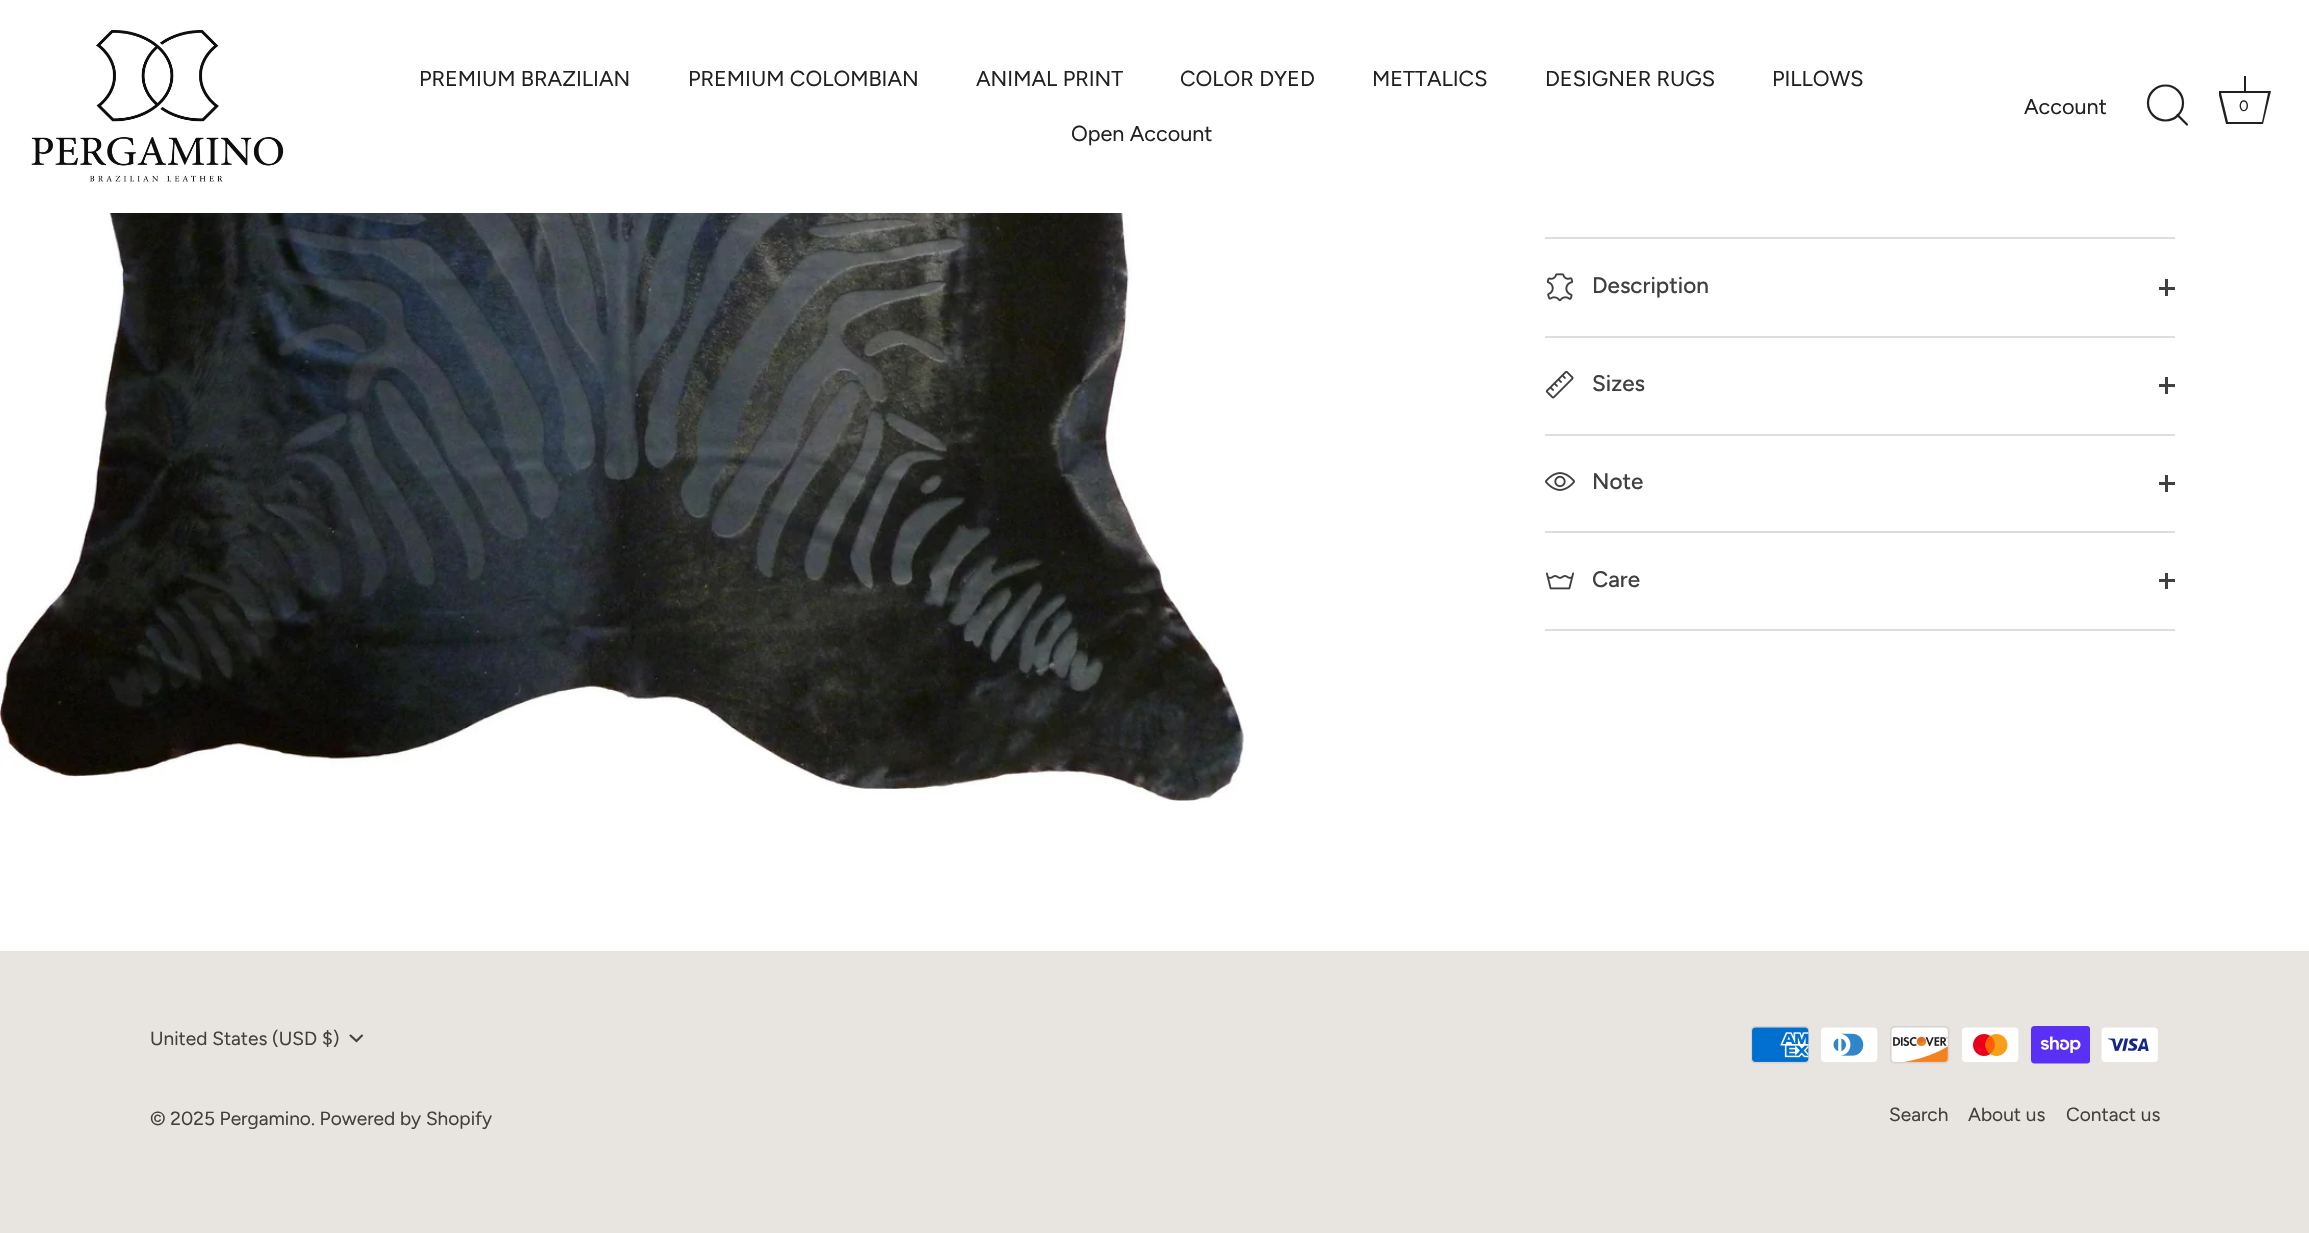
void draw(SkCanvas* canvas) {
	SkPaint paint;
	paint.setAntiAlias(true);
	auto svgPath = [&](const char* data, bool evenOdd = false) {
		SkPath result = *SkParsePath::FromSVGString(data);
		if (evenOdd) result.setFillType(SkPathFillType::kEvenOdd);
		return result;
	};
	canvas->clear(0xffffffff);
	canvas->drawImageRect(SkImages::DeferredFromEncodedData(SkData::MakeFromFileName("img1.png")), SkRect::MakeXYWH(31, 30, 253, 152), SkSamplingOptions());
	SkFont f1(fontMgr->matchFamilyStyle("Figtree", SkFontStyle::Normal()), 21.6);
	f1.setSubpixel(true);
	paint.setColor(0xff212121);
	canvas->drawString("PREMIUM BRAZILIAN", 419, 86, f1, paint);
	canvas->drawString("PREMIUM COLOMBIAN", 688, 86, f1, paint);
	canvas->drawString("ANIMAL PRINT", 976, 86, f1, paint);
	canvas->drawString("COLOR DYED", 1180, 86, f1, paint);
	canvas->drawString("METTALICS", 1372, 86, f1, paint);
	canvas->drawString("DESIGNER RUGS", 1545, 86, f1, paint);
	canvas->drawString("PILLOWS", 1772, 86, f1, paint);
	canvas->drawString("Open Account", 1071, 141, f1, paint);
	canvas->drawString("Account", 2024, 114, f1, paint);
	paint.setStroke(true);
	paint.setStrokeWidth(2.2);
	canvas->drawCircle(2165.5, 103, 17.5, paint);
	paint.setStrokeCap(SkPaint::kRound_Cap);
	paint.setStrokeJoin(SkPaint::kRound_Join);
	canvas->drawPath(svgPath("M2187 124.5L2177.5 115"), paint);
	paint.setStroke(false);
	canvas->drawRect(SkRect::MakeXYWH(2244, 76, 2, 15), paint);
	canvas->save();
	canvas->clipRect(SkRect::MakeXYWH(2219, 74, 52, 52));
	canvas->drawPath(svgPath("M2268 93L2262 122H2228L2221 93H2268M2271 91H2218L2226 124H2263Z"), paint);
	canvas->restore();
	SkFont f2(fontMgr->matchFamilyStyle("Figtree", SkFontStyle::Normal()), 15);
	f2.setSubpixel(true);
	canvas->drawString("0", 2239, 111, f2, paint);
	canvas->drawImageRect(SkImages::DeferredFromEncodedData(SkData::MakeFromFileName("img2.png")), SkRect::MakeXYWH(0, 213, 1245, 588), SkSamplingOptions());
	paint.setColor(0xffdddddd);
	canvas->drawRect(SkRect::MakeXYWH(1545, 237, 630, 2), paint);
	canvas->drawRect(SkRect::MakeXYWH(1545, 336, 630, 2), paint);
	canvas->drawImageRect(SkImages::DeferredFromEncodedData(SkData::MakeFromFileName("img3.png")), SkRect::MakeXYWH(1546, 273, 28, 29), SkSamplingOptions());
	SkFont f3(fontMgr->matchFamilyStyle("Figtree", SkFontStyle(500, SkFontStyle::kNormal_Width, SkFontStyle::kUpright_Slant)), 22.5);
	f3.setSubpixel(true);
	paint.setColor(0xff423f3f);
	canvas->drawString("Description", 1592, 293, f3, paint);
	canvas->drawRect(SkRect::MakeXYWH(2165, 279, 3, 17), paint);
	canvas->drawRect(SkRect::MakeXYWH(2159, 287, 16, 3), paint);
	paint.setColor(0xffdddddd);
	canvas->drawRect(SkRect::MakeXYWH(1545, 434, 630, 2), paint);
	canvas->drawImageRect(SkImages::DeferredFromEncodedData(SkData::MakeFromFileName("img4.png")), SkRect::MakeXYWH(1545, 370, 29, 29), SkSamplingOptions());
	paint.setColor(0xff423f3f);
	canvas->drawString("Sizes", 1592, 391, f3, paint);
	canvas->drawRect(SkRect::MakeXYWH(2165, 377, 3, 17), paint);
	canvas->drawRect(SkRect::MakeXYWH(2159, 384, 16, 3), paint);
	paint.setColor(0xffdddddd);
	canvas->drawRect(SkRect::MakeXYWH(1545, 531, 630, 2), paint);
	canvas->drawImageRect(SkImages::DeferredFromEncodedData(SkData::MakeFromFileName("img5.png")), SkRect::MakeXYWH(1545, 472, 30, 19), SkSamplingOptions());
	paint.setColor(0xff423f3f);
	canvas->drawString("Note", 1592, 489, f3, paint);
	canvas->drawRect(SkRect::MakeXYWH(2165, 475, 3, 17), paint);
	canvas->drawRect(SkRect::MakeXYWH(2159, 482, 16, 3), paint);
	paint.setColor(0xffdddddd);
	canvas->drawRect(SkRect::MakeXYWH(1545, 629, 630, 2), paint);
	canvas->drawImageRect(SkImages::DeferredFromEncodedData(SkData::MakeFromFileName("img6.png")), SkRect::MakeXYWH(1546, 572, 28, 18), SkSamplingOptions());
	paint.setColor(0xff423f3f);
	canvas->drawString("Care", 1592, 587, f3, paint);
	canvas->drawRect(SkRect::MakeXYWH(2165, 573, 3, 16), paint);
	canvas->drawRect(SkRect::MakeXYWH(2159, 579, 16, 3), paint);
	paint.setColor(0xffe8e4df);
	canvas->drawRect(SkRect::MakeXYWH(0, 951, 2309, 282), paint);
	SkFont f4(fontMgr->matchFamilyStyle("Figtree", SkFontStyle::Normal()), 19.1);
	f4.setSubpixel(true);
	paint.setColor(0xff423f3f);
	canvas->drawString("United States (USD $)", 150, 1045, f4, paint);
	paint.setStroke(true);
	paint.setStrokeWidth(2.1);
	paint.setStrokeJoin(SkPaint::kMiter_Join);
	canvas->drawPath(svgPath("M350.5 1035.5L356.5 1041L362 1035.5"), paint);
	paint.setStroke(false);
	canvas->drawString("© 2025 Pergamino. Powered by Shopify", 150, 1125, f4, paint);
	canvas->drawImageRect(SkImages::DeferredFromEncodedData(SkData::MakeFromFileName("img7.png")), SkRect::MakeXYWH(1751, 1026, 58, 38), SkSamplingOptions());
	canvas->drawImageRect(SkImages::DeferredFromEncodedData(SkData::MakeFromFileName("img8.png")), SkRect::MakeXYWH(1821, 1027, 57, 35), SkSamplingOptions());
	canvas->drawImageRect(SkImages::DeferredFromEncodedData(SkData::MakeFromFileName("img9.png")), SkRect::MakeXYWH(1890, 1026, 60, 38), SkSamplingOptions());
	canvas->drawImageRect(SkImages::DeferredFromEncodedData(SkData::MakeFromFileName("img10.png")), SkRect::MakeXYWH(1962, 1027, 57, 35), SkSamplingOptions());
	canvas->drawImageRect(SkImages::DeferredFromEncodedData(SkData::MakeFromFileName("img11.png")), SkRect::MakeXYWH(2031, 1026, 59, 38), SkSamplingOptions());
	canvas->drawImageRect(SkImages::DeferredFromEncodedData(SkData::MakeFromFileName("img12.png")), SkRect::MakeXYWH(2101, 1027, 57, 35), SkSamplingOptions());
	canvas->drawString("Search", 1889, 1121, f4, paint);
	canvas->drawString("About us", 1968, 1121, f4, paint);
	canvas->drawString("Contact us", 2066, 1121, f4, paint);
}
